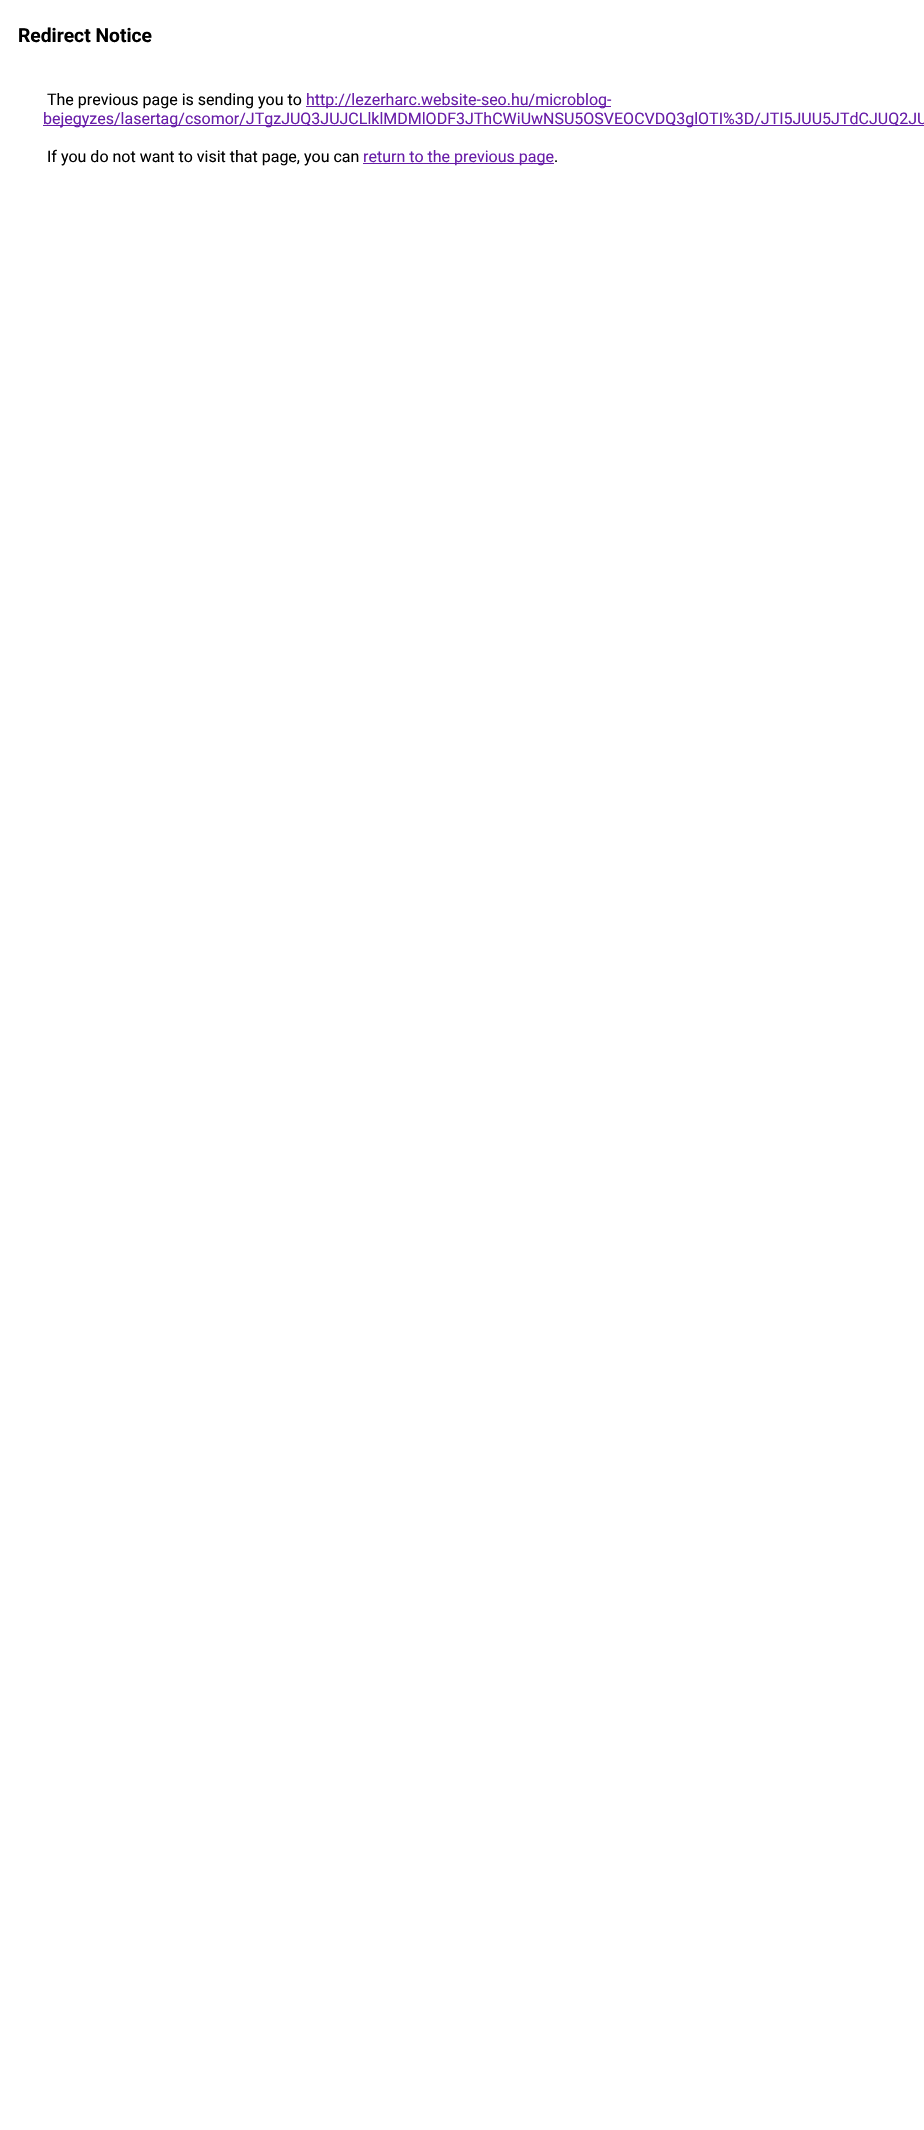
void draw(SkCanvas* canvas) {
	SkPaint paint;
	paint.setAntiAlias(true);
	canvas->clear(0xffffffff);
	SkFont f1(fontMgr->matchFamilyStyle("Roboto", SkFontStyle::Bold()), 19.25);
	f1.setSubpixel(true);
	paint.setColor(0xff000000);
	canvas->drawString("Redirect Notice", 18, 42, f1, paint);
	SkFont f2(fontMgr->matchFamilyStyle("Roboto", SkFontStyle::Normal()), 16);
	f2.setSubpixel(true);
	canvas->drawString("The previous page is sending you to", 47, 105, f2, paint);
	paint.setColor(0xff681da8);
	canvas->drawRect(SkRect::MakeXYWH(306, 106, 305, 1), paint);
	canvas->drawString("http://lezerharc.website-seo.hu/microblog-", 306, 105, f2, paint);
	canvas->drawRect(SkRect::MakeXYWH(43, 125, 881, 1), paint);
	canvas->drawString("bejegyzes/lasertag/csomor/JTgzJUQ3JUJCLlklMDMlODF3JThCWiUwNSU5OSVEOCVDQ3glOTI%3D/JTI5JUU5JTdCJUQ2JU", 43, 124, f2, paint);
	paint.setColor(0xff000000);
	canvas->drawString("If you do not want to visit that page, you can", 47, 162, f2, paint);
	paint.setColor(0xff681da8);
	canvas->drawRect(SkRect::MakeXYWH(363, 163, 191, 1), paint);
	canvas->drawString("return to the previous page", 363, 162, f2, paint);
	paint.setColor(0xff000000);
	canvas->drawString(".", 554, 162, f2, paint);
}
